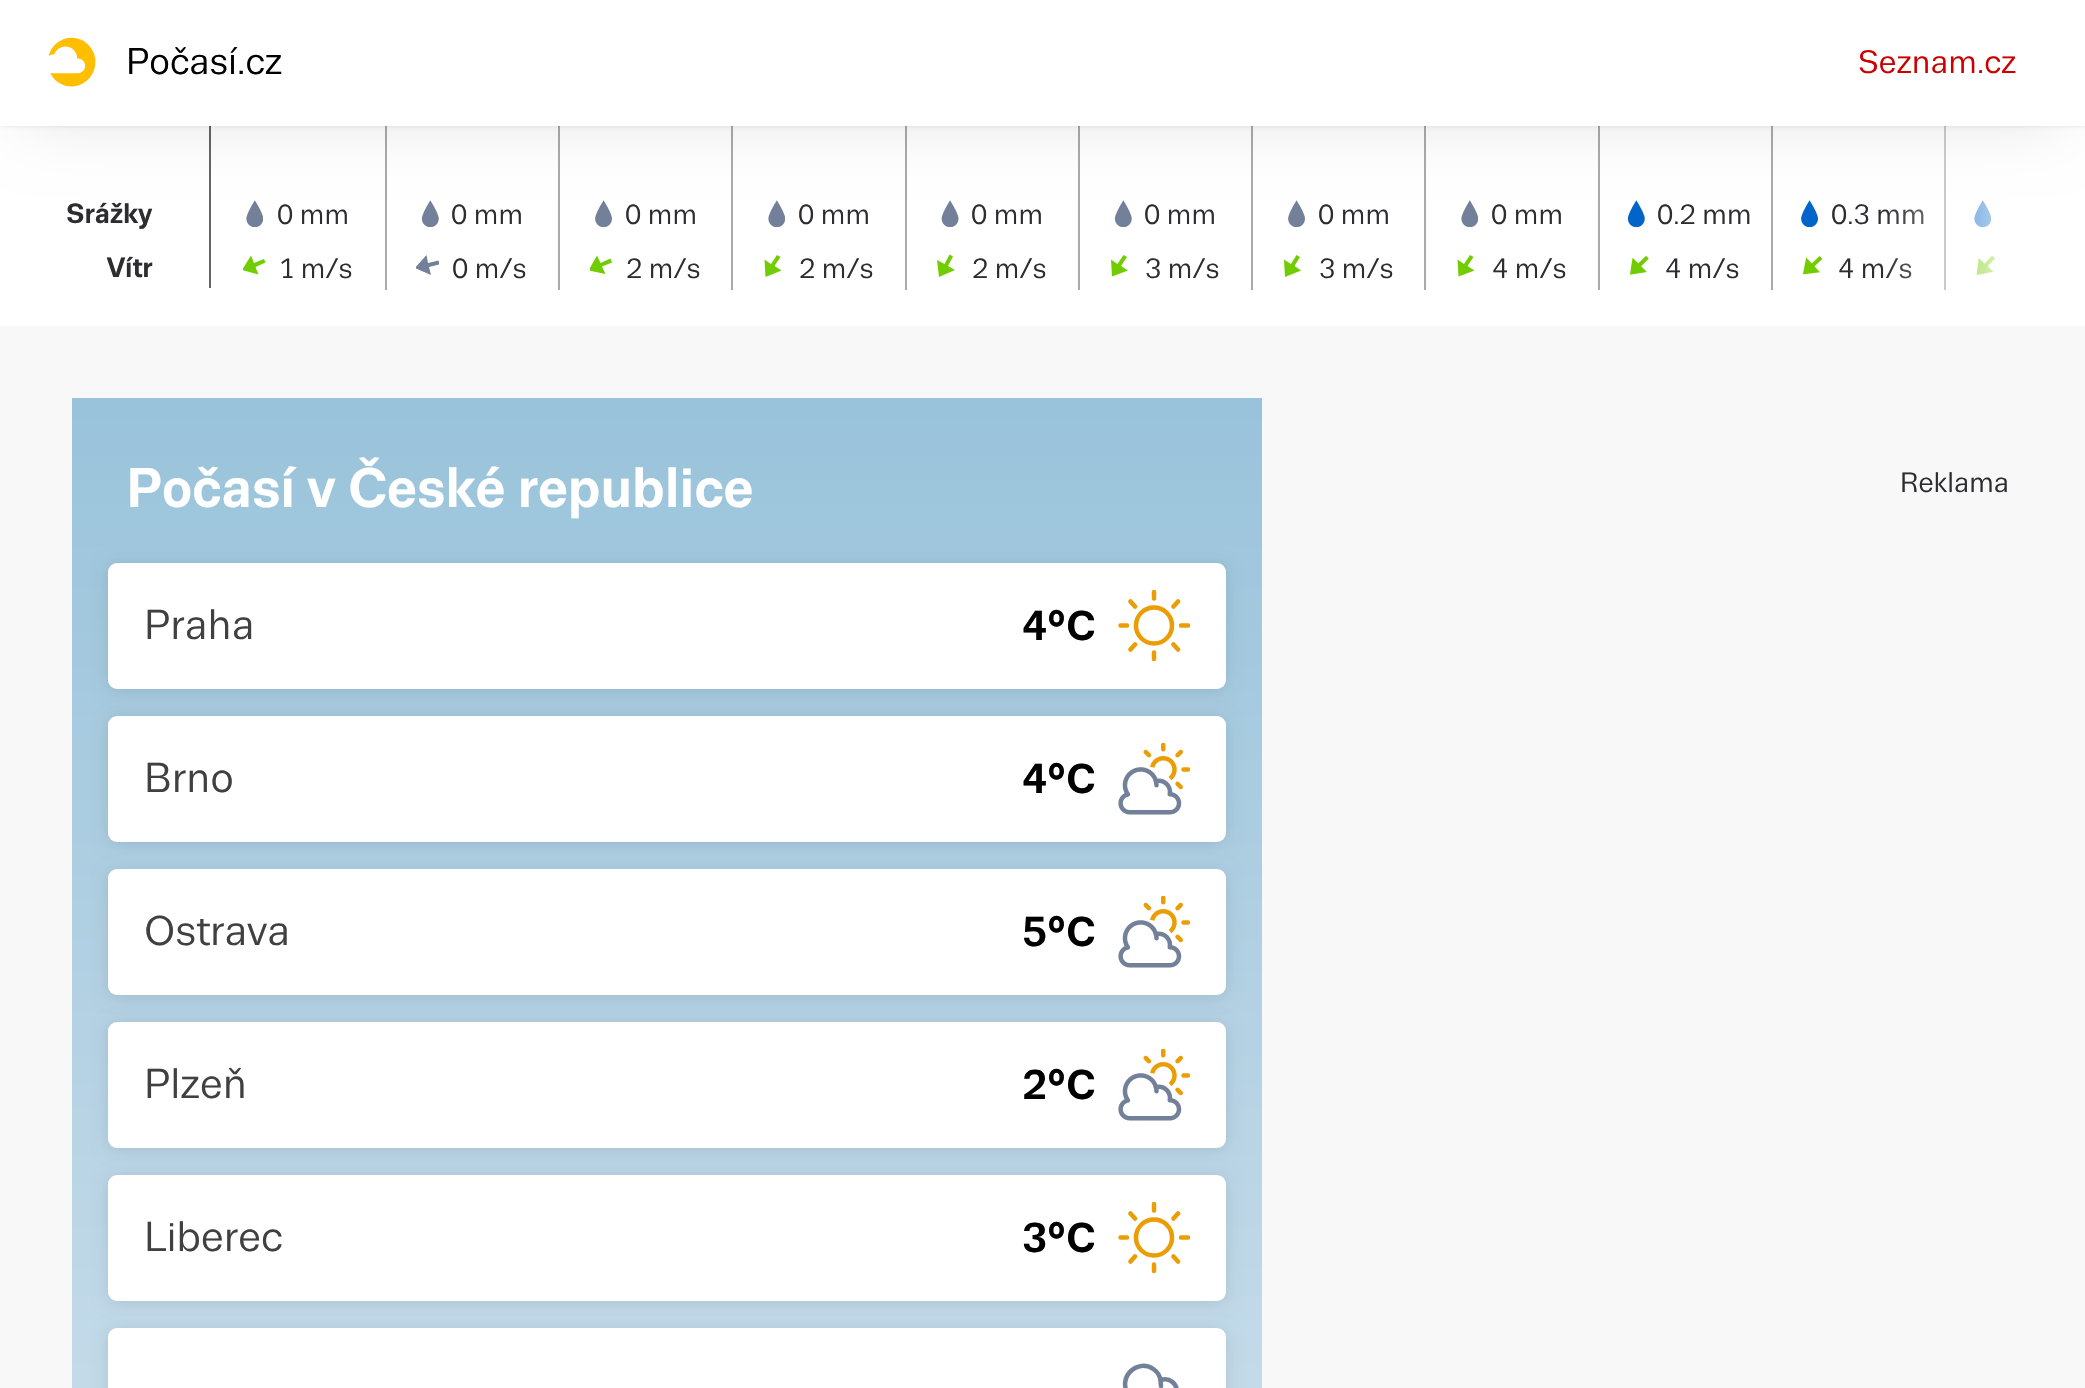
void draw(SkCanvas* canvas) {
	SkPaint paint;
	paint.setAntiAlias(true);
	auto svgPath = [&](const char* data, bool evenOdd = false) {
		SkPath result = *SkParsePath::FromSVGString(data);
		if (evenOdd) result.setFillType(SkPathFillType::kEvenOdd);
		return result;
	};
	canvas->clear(0xffffffff);
	paint.setColor(0xff656565);
	canvas->drawRect(SkRect::MakeXYWH(209, 126, 2, 162), paint);
	canvas->drawImageRect(SkImages::DeferredFromEncodedData(SkData::MakeFromFileName("img2.png")), SkRect::MakeXYWH(246, 200, 17, 27), SkSamplingOptions());
	paint.setColor(0xffaaaaaa);
	canvas->drawRect(SkRect::MakeXYWH(385, 126, 2, 164), paint);
	canvas->drawImageRect(SkImages::DeferredFromEncodedData(SkData::MakeFromFileName("img3.png")), SkRect::MakeXYWH(421, 200, 18, 27), SkSamplingOptions());
	canvas->drawRect(SkRect::MakeXYWH(558, 126, 2, 164), paint);
	canvas->drawImageRect(SkImages::DeferredFromEncodedData(SkData::MakeFromFileName("img4.png")), SkRect::MakeXYWH(595, 200, 17, 27), SkSamplingOptions());
	canvas->drawRect(SkRect::MakeXYWH(731, 126, 2, 164), paint);
	canvas->drawImageRect(SkImages::DeferredFromEncodedData(SkData::MakeFromFileName("img2.png")), SkRect::MakeXYWH(768, 200, 17, 27), SkSamplingOptions());
	canvas->drawRect(SkRect::MakeXYWH(905, 126, 2, 164), paint);
	canvas->drawImageRect(SkImages::DeferredFromEncodedData(SkData::MakeFromFileName("img5.png")), SkRect::MakeXYWH(941, 200, 18, 27), SkSamplingOptions());
	canvas->drawRect(SkRect::MakeXYWH(1078, 126, 2, 164), paint);
	canvas->drawImageRect(SkImages::DeferredFromEncodedData(SkData::MakeFromFileName("img3.png")), SkRect::MakeXYWH(1114, 200, 18, 27), SkSamplingOptions());
	canvas->drawRect(SkRect::MakeXYWH(1251, 126, 2, 164), paint);
	canvas->drawImageRect(SkImages::DeferredFromEncodedData(SkData::MakeFromFileName("img4.png")), SkRect::MakeXYWH(1288, 200, 17, 27), SkSamplingOptions());
	canvas->drawRect(SkRect::MakeXYWH(1424, 126, 2, 164), paint);
	canvas->drawImageRect(SkImages::DeferredFromEncodedData(SkData::MakeFromFileName("img2.png")), SkRect::MakeXYWH(1461, 200, 17, 27), SkSamplingOptions());
	canvas->drawRect(SkRect::MakeXYWH(1598, 126, 2, 164), paint);
	canvas->drawImageRect(SkImages::DeferredFromEncodedData(SkData::MakeFromFileName("img6.png")), SkRect::MakeXYWH(1627, 200, 18, 27), SkSamplingOptions());
	canvas->drawRect(SkRect::MakeXYWH(1771, 126, 2, 164), paint);
	canvas->drawImageRect(SkImages::DeferredFromEncodedData(SkData::MakeFromFileName("img8.png")), SkRect::MakeXYWH(1801, 200, 17, 27), SkSamplingOptions());
	canvas->drawRect(SkRect::MakeXYWH(1944, 126, 2, 164), paint);
	canvas->drawImageRect(SkImages::DeferredFromEncodedData(SkData::MakeFromFileName("img10.png")), SkRect::MakeXYWH(1974, 200, 17, 27), SkSamplingOptions());
	SkFont f1(fontMgr->matchFamilyStyle("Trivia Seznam", SkFontStyle::Normal()), 27);
	f1.setSubpixel(true);
	paint.setColor(0xff2d2d31);
	canvas->drawString("0.3 mm", 1831, 224, f1, paint);
	canvas->drawString("4 m/s", 1838, 278, f1, paint);
	canvas->drawImageRect(SkImages::DeferredFromEncodedData(SkData::MakeFromFileName("img11.png")), SkRect::MakeXYWH(1976, 255, 19, 20), SkSamplingOptions());
	{
		const SkColor colors[] = {0x00ffffff, 0xffffffff};
		const float stops[] = {0, 1};
		const SkPoint ends[] = {{1881, -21}, {2052, -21}};
		paint.setShader(SkGradientShader::MakeLinear(ends, colors, stops, 2, SkTileMode::kClamp));
		paint.setAlpha(255);
	}
	canvas->drawRect(SkRect::MakeXYWH(1885, 126, 110, 164), paint);
	paint.setShader(nullptr);
	paint.setColor(0x1f000000);
	paint.setMaskFilter(SkMaskFilter::MakeBlur(kNormal_SkBlurStyle, 34));
	canvas->drawRect(SkRect::MakeXYWH(27, 45, 2032, 72), paint);
	paint.setMaskFilter(nullptr);
	paint.setColor(0x1a000000);
	paint.setMaskFilter(SkMaskFilter::MakeBlur(kNormal_SkBlurStyle, 2));
	canvas->drawRect(SkRect::MakeXYWH(0, 0, 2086, 126), paint);
	paint.setMaskFilter(nullptr);
	paint.setColor(0xffffffff);
	canvas->drawRect(SkRect::MakeXYWH(0, 0, 2085, 126), paint);
	canvas->drawImageRect(SkImages::DeferredFromEncodedData(SkData::MakeFromFileName("img1.png")), SkRect::MakeXYWH(48, 37, 48, 50), SkSamplingOptions());
	SkFont f2(fontMgr->matchFamilyStyle("Trivia Seznam", SkFontStyle::Normal()), 36);
	f2.setSubpixel(true);
	paint.setColor(0xff000000);
	canvas->drawString("Počasí.cz", 126, 74, f2, paint);
	SkFont f3(fontMgr->matchFamilyStyle("Trivia Seznam", SkFontStyle::Normal()), 31.5);
	f3.setSubpixel(true);
	paint.setColor(0xffcc0000);
	canvas->drawString("Seznam.cz", 1858, 73, f3, paint);
	SkFont f4(fontMgr->matchFamilyStyle("Trivia Seznam", SkFontStyle::Bold()), 27);
	f4.setSubpixel(true);
	paint.setColor(0xff2d2d31);
	canvas->drawString("Srážky", 66, 223, f4, paint);
	canvas->drawString("Vítr", 107, 277, f4, paint);
	canvas->drawString("0 mm", 277, 224, f1, paint);
	canvas->save();
	canvas->clipRect(SkRect::MakeXYWH(243, 254, 23, 27));
	paint.setColor(0xff71cc00);
	canvas->drawPath(svgPath("M251 255.5L242 270L258.5 274.5L255.5 267L265.5 262.5L264 259L254 263Z", true), paint);
	canvas->restore();
	paint.setColor(0xff2d2d31);
	canvas->drawString("1 m/s", 278, 278, f1, paint);
	canvas->drawString("0 mm", 451, 224, f1, paint);
	canvas->save();
	canvas->clipRect(SkRect::MakeXYWH(416, 254, 23, 27));
	paint.setColor(0xff738099);
	canvas->drawPath(svgPath("M426.5 255L415 268L431 275L429 267L439.5 264.5L438.5 260.5L428 263Z", true), paint);
	canvas->restore();
	paint.setColor(0xff2d2d31);
	canvas->drawString("0 m/s", 452, 278, f1, paint);
	canvas->drawString("0 mm", 625, 224, f1, paint);
	canvas->save();
	canvas->clipRect(SkRect::MakeXYWH(590, 254, 22, 27));
	paint.setColor(0xff71cc00);
	canvas->drawPath(svgPath("M597 255.5L588.5 270.5L605.5 274L602 266.5L612 262.5L610.5 258.5L600.5 263Z", true), paint);
	canvas->restore();
	paint.setColor(0xff2d2d31);
	canvas->drawString("2 m/s", 626, 278, f1, paint);
	canvas->drawString("0 mm", 798, 224, f1, paint);
	paint.setColor(0xff71cc00);
	canvas->drawPath(svgPath("M764.5 259.5L765.5 277L781.5 270.5L774.5 266L780.5 257L777 255L771 264Z", true), paint);
	paint.setColor(0xff2d2d31);
	canvas->drawString("2 m/s", 799, 278, f1, paint);
	canvas->drawString("0 mm", 971, 224, f1, paint);
	paint.setColor(0xff71cc00);
	canvas->drawPath(svgPath("M937 260L939 277L955 270L948 266L953 256.5L949.5 254.5L944.5 264Z", true), paint);
	paint.setColor(0xff2d2d31);
	canvas->drawString("2 m/s", 972, 278, f1, paint);
	canvas->drawString("0 mm", 1144, 224, f1, paint);
	paint.setColor(0xff71cc00);
	canvas->drawPath(svgPath("M1111 259.5L1112 276.5L1128 270.5L1121 266L1127 257L1123.5 255L1117.5 264Z", true), paint);
	paint.setColor(0xff2d2d31);
	canvas->drawString("3 m/s", 1145, 278, f1, paint);
	canvas->drawString("0 mm", 1318, 224, f1, paint);
	paint.setColor(0xff71cc00);
	canvas->drawPath(svgPath("M1284 259.5L1285 277L1301 270.5L1294.5 266L1300 257L1296.5 255L1291 264Z", true), paint);
	paint.setColor(0xff2d2d31);
	canvas->drawString("3 m/s", 1319, 278, f1, paint);
	canvas->drawString("0 mm", 1491, 224, f1, paint);
	paint.setColor(0xff71cc00);
	canvas->drawPath(svgPath("M1457.5 259.5L1458.5 276.5L1474.5 270.5L1467.5 266L1473.5 257L1470 255L1464 264Z", true), paint);
	paint.setColor(0xff2d2d31);
	canvas->drawString("4 m/s", 1492, 278, f1, paint);
	canvas->drawString("0.2 mm", 1657, 224, f1, paint);
	canvas->drawImageRect(SkImages::DeferredFromEncodedData(SkData::MakeFromFileName("img7.png")), SkRect::MakeXYWH(1629, 255, 20, 20), SkSamplingOptions());
	canvas->drawString("4 m/s", 1665, 278, f1, paint);
	canvas->drawImageRect(SkImages::DeferredFromEncodedData(SkData::MakeFromFileName("img9.png")), SkRect::MakeXYWH(1803, 256, 20, 19), SkSamplingOptions());
	paint.setColor(0xfff8f8f8);
	canvas->drawRect(SkRect::MakeXYWH(0, 326, 2085, 1062), paint);
	{
		const SkColor colors[] = {0xff99c3db, 0xffe0eaf2};
		const float stops[] = {0, 1};
		const SkPoint ends[] = {{667, 398}, {667, 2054}};
		paint.setShader(SkGradientShader::MakeLinear(ends, colors, stops, 2, SkTileMode::kClamp));
		paint.setAlpha(255);
	}
	canvas->drawRect(SkRect::MakeXYWH(72, 398, 1190, 990), paint);
	SkFont f5(fontMgr->matchFamilyStyle("Trivia Seznam", SkFontStyle::Bold()), 54);
	f5.setSubpixel(true);
	paint.setShader(nullptr);
	paint.setColor(0xffffffff);
	canvas->drawString("Počasí v České republice", 126, 507, f5, paint);
	paint.setColor(0x1a000000);
	paint.setMaskFilter(SkMaskFilter::MakeBlur(kNormal_SkBlurStyle, 8));
	canvas->drawRoundRect(SkRect::MakeXYWH(108, 565, 1118, 126), 9, 9, paint);
	paint.setMaskFilter(nullptr);
	paint.setColor(0xffffffff);
	canvas->drawRoundRect(SkRect::MakeXYWH(108, 563, 1118, 126), 9, 9, paint);
	SkFont f6(fontMgr->matchFamilyStyle("Trivia Seznam", SkFontStyle::Normal()), 40.5);
	f6.setSubpixel(true);
	paint.setColor(0xff404040);
	canvas->drawString("Praha", 144, 639, f6, paint);
	paint.setStroke(true);
	paint.setStrokeWidth(4.5);
	paint.setColor(0xffeb9d05);
	canvas->drawCircle(1154, 625.5, 18, paint);
	canvas->save();
	canvas->clipRect(SkRect::MakeXYWH(1118, 590, 72, 72));
	paint.setStrokeCap(SkPaint::kRound_Cap);
	canvas->drawPath(svgPath("M1154 592V598.5M1130.5 601.5L1135 606.5M1120.5 625.5H1127M1130.5 649.5L1135 644.5M1154 659V652.5M1178 649.5L1173.5 644.5M1188 625.5H1181M1178 601.5L1173.5 606.5"), paint);
	canvas->restore();
	SkFont f7(fontMgr->matchFamilyStyle("Trivia Seznam", SkFontStyle::Bold()), 40.5);
	f7.setSubpixel(true);
	paint.setStroke(false);
	paint.setColor(0xff000000);
	canvas->drawString("4°C", 1022, 640, f7, paint);
	paint.setColor(0x1a000000);
	paint.setMaskFilter(SkMaskFilter::MakeBlur(kNormal_SkBlurStyle, 8));
	canvas->drawRoundRect(SkRect::MakeXYWH(108, 718, 1118, 126), 9, 9, paint);
	paint.setMaskFilter(nullptr);
	paint.setColor(0xffffffff);
	canvas->drawRoundRect(SkRect::MakeXYWH(108, 716, 1118, 126), 9, 9, paint);
	paint.setColor(0xff404040);
	canvas->drawString("Brno", 144, 792, f6, paint);
	paint.setColor(0xff000000);
	canvas->drawString("4°C", 1022, 793, f7, paint);
	canvas->drawImageRect(SkImages::DeferredFromEncodedData(SkData::MakeFromFileName("img12.png")), SkRect::MakeXYWH(1118, 743, 72, 72), SkSamplingOptions());
	paint.setColor(0x1a000000);
	paint.setMaskFilter(SkMaskFilter::MakeBlur(kNormal_SkBlurStyle, 8));
	canvas->drawRoundRect(SkRect::MakeXYWH(108, 871, 1118, 126), 9, 9, paint);
	paint.setMaskFilter(nullptr);
	paint.setColor(0xffffffff);
	canvas->drawRoundRect(SkRect::MakeXYWH(108, 869, 1118, 126), 9, 9, paint);
	paint.setColor(0xff404040);
	canvas->drawString("Ostrava", 144, 945, f6, paint);
	paint.setColor(0xff000000);
	canvas->drawString("5°C", 1022, 946, f7, paint);
	canvas->drawImageRect(SkImages::DeferredFromEncodedData(SkData::MakeFromFileName("img12.png")), SkRect::MakeXYWH(1118, 896, 72, 72), SkSamplingOptions());
	paint.setColor(0x1a000000);
	paint.setMaskFilter(SkMaskFilter::MakeBlur(kNormal_SkBlurStyle, 8));
	canvas->drawRoundRect(SkRect::MakeXYWH(108, 1024, 1118, 126), 9, 9, paint);
	paint.setMaskFilter(nullptr);
	paint.setColor(0xffffffff);
	canvas->drawRoundRect(SkRect::MakeXYWH(108, 1022, 1118, 126), 9, 9, paint);
	paint.setColor(0xff404040);
	canvas->drawString("Plzeň", 144, 1098, f6, paint);
	paint.setColor(0xff000000);
	canvas->drawString("2°C", 1022, 1099, f7, paint);
	canvas->drawImageRect(SkImages::DeferredFromEncodedData(SkData::MakeFromFileName("img12.png")), SkRect::MakeXYWH(1118, 1049, 72, 72), SkSamplingOptions());
	paint.setColor(0x1a000000);
	paint.setMaskFilter(SkMaskFilter::MakeBlur(kNormal_SkBlurStyle, 8));
	canvas->drawRoundRect(SkRect::MakeXYWH(108, 1177, 1118, 126), 9, 9, paint);
	paint.setMaskFilter(nullptr);
	paint.setColor(0xffffffff);
	canvas->drawRoundRect(SkRect::MakeXYWH(108, 1175, 1118, 126), 9, 9, paint);
	paint.setColor(0xff404040);
	canvas->drawString("Liberec", 144, 1251, f6, paint);
	paint.setStroke(true);
	paint.setStrokeCap(SkPaint::kButt_Cap);
	paint.setColor(0xffeb9d05);
	canvas->drawCircle(1154, 1237.5, 18, paint);
	canvas->save();
	canvas->clipRect(SkRect::MakeXYWH(1118, 1202, 72, 72));
	paint.setStrokeCap(SkPaint::kRound_Cap);
	canvas->drawPath(svgPath("M1154 1204V1210.5M1130.5 1213.5L1135 1218.5M1120.5 1237.5H1127M1130.5 1261.5L1135 1256.5M1154 1271V1264.5M1178 1261.5L1173.5 1256.5M1188 1237.5H1181M1178 1213.5L1173.5 1218.5"), paint);
	canvas->restore();
	paint.setStroke(false);
	paint.setColor(0xff000000);
	canvas->drawString("3°C", 1022, 1252, f7, paint);
	paint.setColor(0x1a000000);
	paint.setMaskFilter(SkMaskFilter::MakeBlur(kNormal_SkBlurStyle, 8));
	canvas->drawRoundRect(SkRect::MakeXYWH(108, 1330, 1118, 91), 9, 9, paint);
	paint.setMaskFilter(nullptr);
	paint.setColor(0xffffffff);
	canvas->drawRoundRect(SkRect::MakeXYWH(108, 1328, 1118, 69), 9, 9, paint);
	paint.setStroke(true);
	paint.setStrokeJoin(SkPaint::kRound_Join);
	paint.setColor(0xff738099);
	canvas->drawPath(svgPath("M1177 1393H1176.5C1178 1384 1169 1376.5 1160.5 1380.5C1160 1376 1157.5 1372 1154 1369.5C1137.5 1357.5 1117.5 1377.5 1128 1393.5C1123 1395.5 1120 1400.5 1121 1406C1121.5 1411.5 1126.5 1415 1132 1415H1177C1183 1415 1188 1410 1188 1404C1188 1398 1183 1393 1177 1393ZM1160.5 1380.5L1161 1386"), paint);
	paint.setStroke(false);
	paint.setColor(0xff2d2d31);
	canvas->drawString("Reklama", 1900, 492, f1, paint);
}
